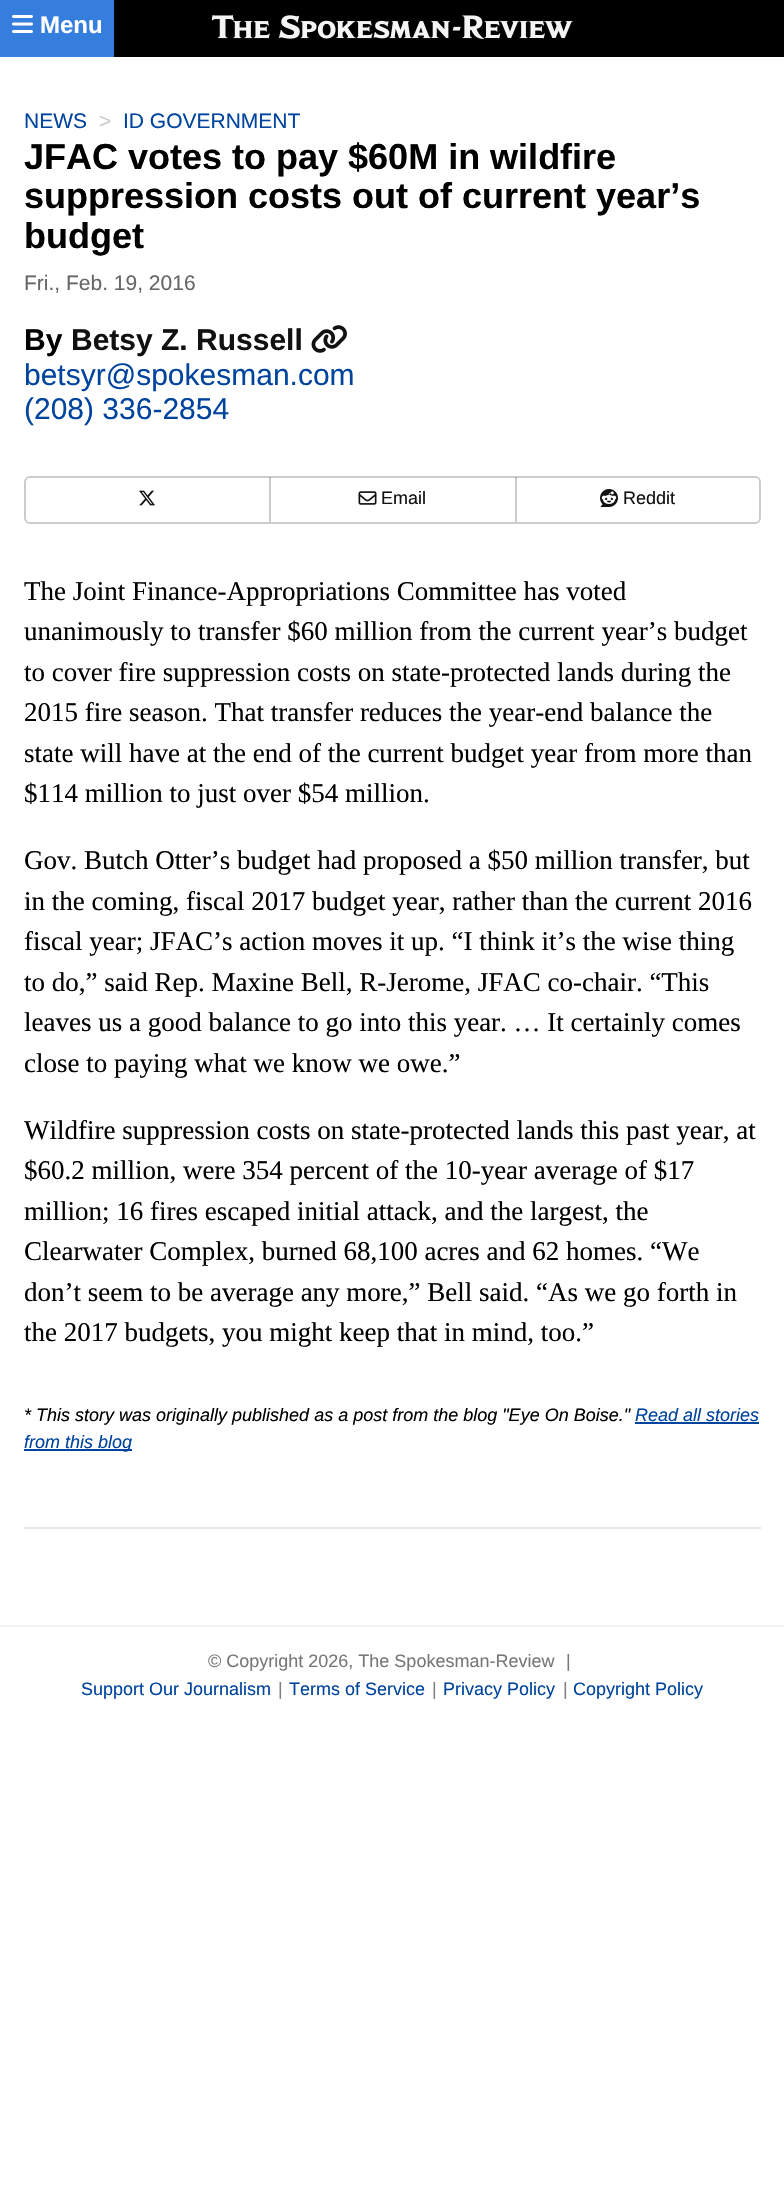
void draw(SkCanvas* canvas) {
	SkPaint paint;
	paint.setAntiAlias(true);
	canvas->clear(0xffffffff);
	paint.setColor(0xff000000);
	canvas->drawRect(SkRect::MakeXYWH(114, 0, 670, 57), paint);
	paint.setColor(0xff357edd);
	canvas->drawRect(SkRect::MakeXYWH(0, 0, 114, 57), paint);
	canvas->drawImageRect(SkImages::DeferredFromEncodedData(SkData::MakeFromFileName("img1.png")), SkRect::MakeXYWH(12, 15, 21, 18), SkSamplingOptions());
	SkFont f1(fontMgr->matchFamilyStyle("Liberation Sans", SkFontStyle::Bold()), 24);
	f1.setSubpixel(true);
	paint.setColor(0xffffffff);
	canvas->drawString("Menu", 40, 33, f1, paint);
	canvas->drawImageRect(SkImages::DeferredFromEncodedData(SkData::MakeFromFileName("img2.png")), SkRect::MakeXYWH(212, 15, 361, 24), SkSamplingOptions());
	paint.setColor(0xffe6e6e6);
	canvas->drawRect(SkRect::MakeXYWH(24, 1527, 737, 2), paint);
	SkFont f2(fontMgr->matchFamilyStyle("Liberation Sans", SkFontStyle::Normal()), 21);
	f2.setSubpixel(true);
	paint.setColor(0xff00449e);
	canvas->drawString("NEWS", 24, 128, f2, paint);
	paint.setColor(0xffcccccc);
	canvas->drawString(">", 99, 128, f2, paint);
	paint.setColor(0xff00449e);
	canvas->drawString("ID GOVERNMENT", 123, 128, f2, paint);
	SkFont f3(fontMgr->matchFamilyStyle("Liberation Sans", SkFontStyle::Bold()), 36);
	f3.setSubpixel(true);
	paint.setColor(0xff000000);
	canvas->drawString("JFAC votes to pay $60M in wildfire", 24, 169, f3, paint);
	canvas->drawString("suppression costs out of current year’s", 24, 208, f3, paint);
	canvas->drawString("budget", 24, 248, f3, paint);
	paint.setColor(0xff666666);
	canvas->drawString("Fri., Feb. 19, 2016", 24, 290, f2, paint);
	SkFont f4(fontMgr->matchFamilyStyle("Liberation Sans", SkFontStyle::Bold()), 30);
	f4.setSubpixel(true);
	paint.setColor(0xff000000);
	canvas->drawString("By", 24, 350, f4, paint);
	paint.setColor(0xff111111);
	canvas->drawString("Betsy Z. Russell", 71, 350, f4, paint);
	canvas->drawImageRect(SkImages::DeferredFromEncodedData(SkData::MakeFromFileName("img3.png")), SkRect::MakeXYWH(311, 325, 36, 28), SkSamplingOptions());
	SkFont f5(fontMgr->matchFamilyStyle("Liberation Sans", SkFontStyle::Normal()), 30);
	f5.setSubpixel(true);
	paint.setColor(0xff00449e);
	canvas->drawString("betsyr@spokesman.com", 24, 385, f5, paint);
	canvas->drawString("(208) 336-2854", 24, 419, f5, paint);
	paint.setStroke(true);
	paint.setStrokeWidth(2);
	paint.setColor(0xffcccccc);
	canvas->drawRoundRect(SkRect::MakeXYWH(25, 477, 735, 46), 5, 5, paint);
	paint.setStroke(false);
	paint.setColor(0x33000000);
	canvas->drawRect(SkRect::MakeXYWH(269, 477, 2, 45), paint);
	canvas->drawImageRect(SkImages::DeferredFromEncodedData(SkData::MakeFromFileName("img4.png")), SkRect::MakeXYWH(139, 490, 16, 16), SkSamplingOptions());
	canvas->drawRect(SkRect::MakeXYWH(515, 477, 2, 45), paint);
	canvas->drawImageRect(SkImages::DeferredFromEncodedData(SkData::MakeFromFileName("img5.png")), SkRect::MakeXYWH(358, 491, 19, 14), SkSamplingOptions());
	SkFont f6(fontMgr->matchFamilyStyle("Liberation Sans", SkFontStyle::Normal()), 18);
	f6.setSubpixel(true);
	paint.setColor(0xff111111);
	canvas->drawString("Email", 381, 504, f6, paint);
	canvas->drawImageRect(SkImages::DeferredFromEncodedData(SkData::MakeFromFileName("img6.png")), SkRect::MakeXYWH(600, 489, 18, 18), SkSamplingOptions());
	canvas->drawString("Reddit", 623, 504, f6, paint);
	SkFont f7(fontMgr->matchFamilyStyle("Liberation Serif", SkFontStyle::Normal()), 27);
	f7.setSubpixel(true);
	paint.setColor(0xff000000);
	canvas->drawString("The Joint Finance-Appropriations Committee has voted", 24, 600, f7, paint);
	canvas->drawString("unanimously to transfer $60 million from the current year’s budget", 24, 640, f7, paint);
	canvas->drawString("to cover fire suppression costs on state-protected lands during the", 24, 681, f7, paint);
	canvas->drawString("2015 fire season. That transfer reduces the year-end balance the", 24, 721, f7, paint);
	canvas->drawString("state will have at the end of the current budget year from more than", 24, 762, f7, paint);
	canvas->drawString("$114 million to just over $54 million.", 24, 802, f7, paint);
	canvas->drawString("Gov. Butch Otter’s budget had proposed a $50 million transfer, but", 24, 869, f7, paint);
	canvas->drawString("in the coming, fiscal 2017 budget year, rather than the current 2016", 24, 910, f7, paint);
	canvas->drawString("fiscal year; JFAC’s action moves it up. “I think it’s the wise thing", 24, 950, f7, paint);
	canvas->drawString("to do,” said Rep. Maxine Bell, R-Jerome, JFAC co-chair. “This", 24, 991, f7, paint);
	canvas->drawString("leaves us a good balance to go into this year. … It certainly comes", 24, 1031, f7, paint);
	canvas->drawString("close to paying what we know we owe.”", 24, 1072, f7, paint);
	canvas->drawString("Wildfire suppression costs on state-protected lands this past year, at", 24, 1139, f7, paint);
	canvas->drawString("$60.2 million, were 354 percent of the 10-year average of $17", 24, 1179, f7, paint);
	canvas->drawString("million; 16 fires escaped initial attack, and the largest, the", 24, 1220, f7, paint);
	canvas->drawString("Clearwater Complex, burned 68,100 acres and 62 homes. “We", 24, 1260, f7, paint);
	canvas->drawString("don’t seem to be average any more,” Bell said. “As we go forth in", 24, 1301, f7, paint);
	canvas->drawString("the 2017 budgets, you might keep that in mind, too.”", 24, 1341, f7, paint);
	SkFont f8(fontMgr->matchFamilyStyle("Liberation Sans", SkFontStyle::Italic()), 18);
	f8.setSubpixel(true);
	canvas->drawString("* This story was originally published as a post from the blog \"Eye On Boise.\"", 24, 1421, f8, paint);
	paint.setColor(0xff00449e);
	canvas->drawString("Read all stories", 635, 1421, f8, paint);
	canvas->drawRect(SkRect::MakeXYWH(635, 1422, 124, 2), paint);
	canvas->drawRect(SkRect::MakeXYWH(24, 1449, 108, 2), paint);
	canvas->drawString("from this blog", 24, 1448, f8, paint);
	paint.setColor(0xfff4f4f4);
	canvas->drawRect(SkRect::MakeXYWH(0, 1625, 784, 2), paint);
	paint.setColor(0xff777777);
	canvas->drawString("© Copyright 2026, The Spokesman-Review", 208, 1667, f6, paint);
	canvas->drawString("|", 566, 1667, f6, paint);
	paint.setColor(0xff00449e);
	canvas->drawString("Support Our Journalism", 81, 1695, f6, paint);
	paint.setColor(0xff808080);
	canvas->drawString("|", 278, 1695, f6, paint);
	paint.setColor(0xff00449e);
	canvas->drawString("Terms of Service", 289, 1695, f6, paint);
	paint.setColor(0xff808080);
	canvas->drawString("|", 432, 1695, f6, paint);
	paint.setColor(0xff00449e);
	canvas->drawString("Privacy Policy", 443, 1695, f6, paint);
	paint.setColor(0xff808080);
	canvas->drawString("|", 563, 1695, f6, paint);
	paint.setColor(0xff00449e);
	canvas->drawString("Copyright Policy", 573, 1695, f6, paint);
}
